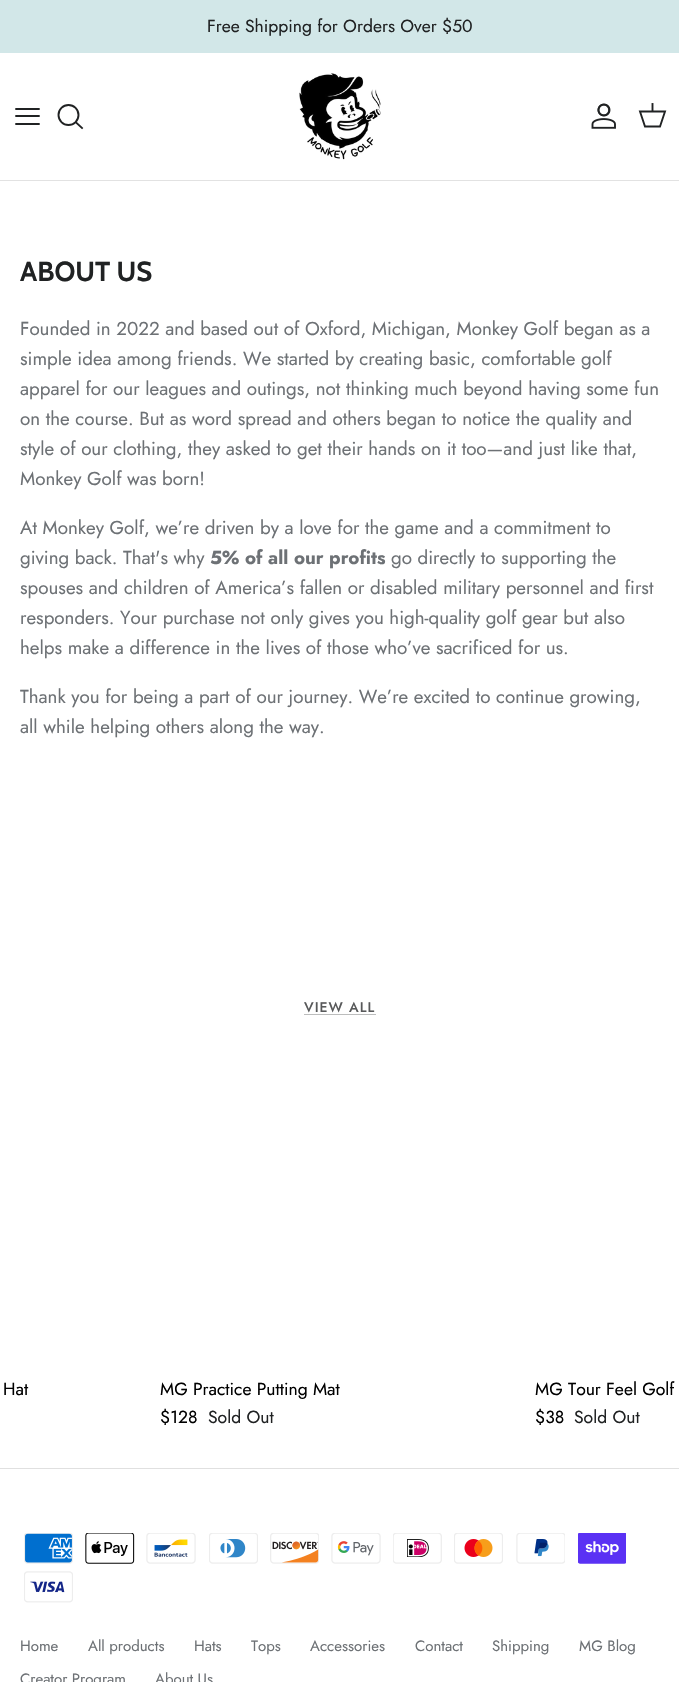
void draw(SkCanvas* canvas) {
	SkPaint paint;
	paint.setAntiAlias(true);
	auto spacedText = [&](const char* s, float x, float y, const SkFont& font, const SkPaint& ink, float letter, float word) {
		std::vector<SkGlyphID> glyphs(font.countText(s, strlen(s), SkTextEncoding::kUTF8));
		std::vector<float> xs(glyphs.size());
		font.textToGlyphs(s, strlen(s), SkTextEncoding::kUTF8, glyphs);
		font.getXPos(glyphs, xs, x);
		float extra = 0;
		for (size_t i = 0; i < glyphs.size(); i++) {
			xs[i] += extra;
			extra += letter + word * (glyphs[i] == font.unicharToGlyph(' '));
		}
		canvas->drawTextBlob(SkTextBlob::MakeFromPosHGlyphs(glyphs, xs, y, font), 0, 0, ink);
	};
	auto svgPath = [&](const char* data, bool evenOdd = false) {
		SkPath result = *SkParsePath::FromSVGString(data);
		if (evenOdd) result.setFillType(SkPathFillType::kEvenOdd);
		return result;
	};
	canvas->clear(0xffffffff);
	paint.setColor(0xffd2e7e8);
	canvas->drawRect(SkRect::MakeXYWH(0, 0, 679, 53), paint);
	SkFont f1(fontMgr->matchFamilyStyle("Jost", SkFontStyle::Normal()), 17.5);
	f1.setSubpixel(true);
	paint.setColor(0xff202223);
	canvas->drawString("Free Shipping for Orders Over $50", 207, 32, f1, paint);
	paint.setColor(0xffe2e2e2);
	canvas->drawRect(SkRect::MakeXYWH(0, 180, 679, 1), paint);
	paint.setStroke(true);
	paint.setStrokeWidth(1.9);
	paint.setStrokeCap(SkPaint::kRound_Cap);
	paint.setStrokeJoin(SkPaint::kRound_Join);
	paint.setColor(0xff202223);
	canvas->drawPath(svgPath("M16 116H39M16 109H39M16 124H39"), paint);
	paint.setStrokeCap(SkPaint::kButt_Cap);
	paint.setStrokeJoin(SkPaint::kMiter_Join);
	canvas->drawCircle(68.5, 115, 10, paint);
	paint.setStrokeCap(SkPaint::kSquare_Cap);
	canvas->drawPath(svgPath("M76 122.5L82 128"), paint);
	canvas->drawImageRect(SkImages::DeferredFromEncodedData(SkData::MakeFromFileName("img1.png")), SkRect::MakeXYWH(299, 73, 82, 87), SkSamplingOptions());
	canvas->drawImageRect(SkImages::DeferredFromEncodedData(SkData::MakeFromFileName("img2.png")), SkRect::MakeXYWH(591, 103, 25, 26), SkSamplingOptions());
	paint.setStrokeCap(SkPaint::kButt_Cap);
	canvas->drawPath(svgPath("M640 111.5H665L660 126.5H645Z"), paint);
	paint.setStrokeCap(SkPaint::kSquare_Cap);
	canvas->drawPath(svgPath("M652.5 111V104"), paint);
	SkFont f2(fontMgr->matchFamilyStyle("Cabin", SkFontStyle::Bold()), 27.5);
	f2.setSubpixel(true);
	paint.setStroke(false);
	canvas->drawString("ABOUT US", 20, 281, f2, paint);
	SkFont f3(fontMgr->matchFamilyStyle("Jost", SkFontStyle::Normal()), 18.75);
	f3.setSubpixel(true);
	paint.setColor(0xff6d7175);
	canvas->drawString("Founded in 2022 and based out of Oxford, Michigan, Monkey Golf began as a", 20, 335, f3, paint);
	canvas->drawString("simple idea among friends. We started by creating basic, comfortable golf", 20, 365, f3, paint);
	canvas->drawString("apparel for our leagues and outings, not thinking much beyond having some fun", 20, 395, f3, paint);
	canvas->drawString("on the course. But as word spread and others began to notice the quality and", 20, 425, f3, paint);
	canvas->drawString("style of our clothing, they asked to get their hands on it too—and just like that,", 20, 455, f3, paint);
	canvas->drawString("Monkey Golf was born!", 20, 485, f3, paint);
	canvas->drawString("At Monkey Golf, we’re driven by a love for the game and a commitment to", 20, 534, f3, paint);
	canvas->drawString("giving back. That's why", 20, 564, f3, paint);
	SkFont f4(fontMgr->matchFamilyStyle("Jost", SkFontStyle::Bold()), 18.75);
	f4.setSubpixel(true);
	canvas->drawString("5% of all our profits", 210, 564, f4, paint);
	canvas->drawString("go directly to supporting the", 391, 564, f3, paint);
	canvas->drawString("spouses and children of America’s fallen or disabled military personnel and first", 20, 594, f3, paint);
	canvas->drawString("responders. Your purchase not only gives you high-quality golf gear but also", 20, 624, f3, paint);
	canvas->drawString("helps make a difference in the lives of those who’ve sacrificed for us.", 20, 654, f3, paint);
	canvas->drawString("Thank you for being a part of our journey. We’re excited to continue growing,", 20, 703, f3, paint);
	canvas->drawString("all while helping others along the way.", 20, 733, f3, paint);
	SkFont f5(fontMgr->matchFamilyStyle("Jost", SkFontStyle(500, SkFontStyle::kNormal_Width, SkFontStyle::kUpright_Slant)), 14);
	f5.setSubpixel(true);
	paint.setColor(0xff58595a);
	spacedText("VIEW ALL", 304, 1012, f5, paint, 1, 0);
	paint.setColor(0xffbcbdbd);
	canvas->drawRect(SkRect::MakeXYWH(304, 1014, 72, 1), paint);
	paint.setColor(0xff000000);
	canvas->drawString("Hat", 3, 1395, f1, paint);
	canvas->drawString("MG Practice Putting Mat", 160, 1395, f1, paint);
	canvas->drawString("$128", 160, 1423, f1, paint);
	paint.setColor(0xff202223);
	canvas->drawString("Sold Out", 208, 1423, f1, paint);
	paint.setColor(0xff000000);
	canvas->drawString("MG Tour Feel Golf", 535, 1395, f1, paint);
	canvas->drawString("$38", 535, 1423, f1, paint);
	paint.setColor(0xff202223);
	canvas->drawString("Sold Out", 574, 1423, f1, paint);
	paint.setColor(0xffe0e0e0);
	canvas->drawRect(SkRect::MakeXYWH(0, 1468, 679, 1), paint);
	canvas->drawImageRect(SkImages::DeferredFromEncodedData(SkData::MakeFromFileName("img3.png")), SkRect::MakeXYWH(24, 1533, 49, 31), SkSamplingOptions());
	canvas->drawImageRect(SkImages::DeferredFromEncodedData(SkData::MakeFromFileName("img4.png")), SkRect::MakeXYWH(85, 1533, 50, 31), SkSamplingOptions());
	canvas->drawImageRect(SkImages::DeferredFromEncodedData(SkData::MakeFromFileName("img5.png")), SkRect::MakeXYWH(146, 1533, 50, 31), SkSamplingOptions());
	canvas->drawImageRect(SkImages::DeferredFromEncodedData(SkData::MakeFromFileName("img6.png")), SkRect::MakeXYWH(209, 1533, 49, 31), SkSamplingOptions());
	canvas->drawImageRect(SkImages::DeferredFromEncodedData(SkData::MakeFromFileName("img7.png")), SkRect::MakeXYWH(270, 1533, 49, 31), SkSamplingOptions());
	canvas->drawImageRect(SkImages::DeferredFromEncodedData(SkData::MakeFromFileName("img8.png")), SkRect::MakeXYWH(331, 1533, 50, 31), SkSamplingOptions());
	canvas->drawImageRect(SkImages::DeferredFromEncodedData(SkData::MakeFromFileName("img9.png")), SkRect::MakeXYWH(393, 1533, 49, 31), SkSamplingOptions());
	canvas->drawImageRect(SkImages::DeferredFromEncodedData(SkData::MakeFromFileName("img10.png")), SkRect::MakeXYWH(454, 1533, 49, 31), SkSamplingOptions());
	canvas->drawImageRect(SkImages::DeferredFromEncodedData(SkData::MakeFromFileName("img11.png")), SkRect::MakeXYWH(516, 1533, 49, 31), SkSamplingOptions());
	canvas->drawImageRect(SkImages::DeferredFromEncodedData(SkData::MakeFromFileName("img12.png")), SkRect::MakeXYWH(578, 1533, 48, 31), SkSamplingOptions());
	canvas->drawImageRect(SkImages::DeferredFromEncodedData(SkData::MakeFromFileName("img13.png")), SkRect::MakeXYWH(24, 1571, 49, 32), SkSamplingOptions());
	SkFont f6(fontMgr->matchFamilyStyle("Jost", SkFontStyle::Normal()), 15);
	f6.setSubpixel(true);
	paint.setColor(0xff6d7175);
	canvas->drawString("Home", 20, 1651, f6, paint);
	canvas->drawString("All products", 88, 1651, f6, paint);
	canvas->drawString("Hats", 194, 1651, f6, paint);
	canvas->drawString("Tops", 251, 1651, f6, paint);
	canvas->drawString("Accessories", 310, 1651, f6, paint);
	canvas->drawString("Contact", 415, 1651, f6, paint);
	canvas->drawString("Shipping", 492, 1651, f6, paint);
	canvas->drawString("MG Blog", 579, 1651, f6, paint);
	canvas->drawString("Creator Program", 20, 1684, f6, paint);
	canvas->drawString("About Us", 155, 1684, f6, paint);
}
